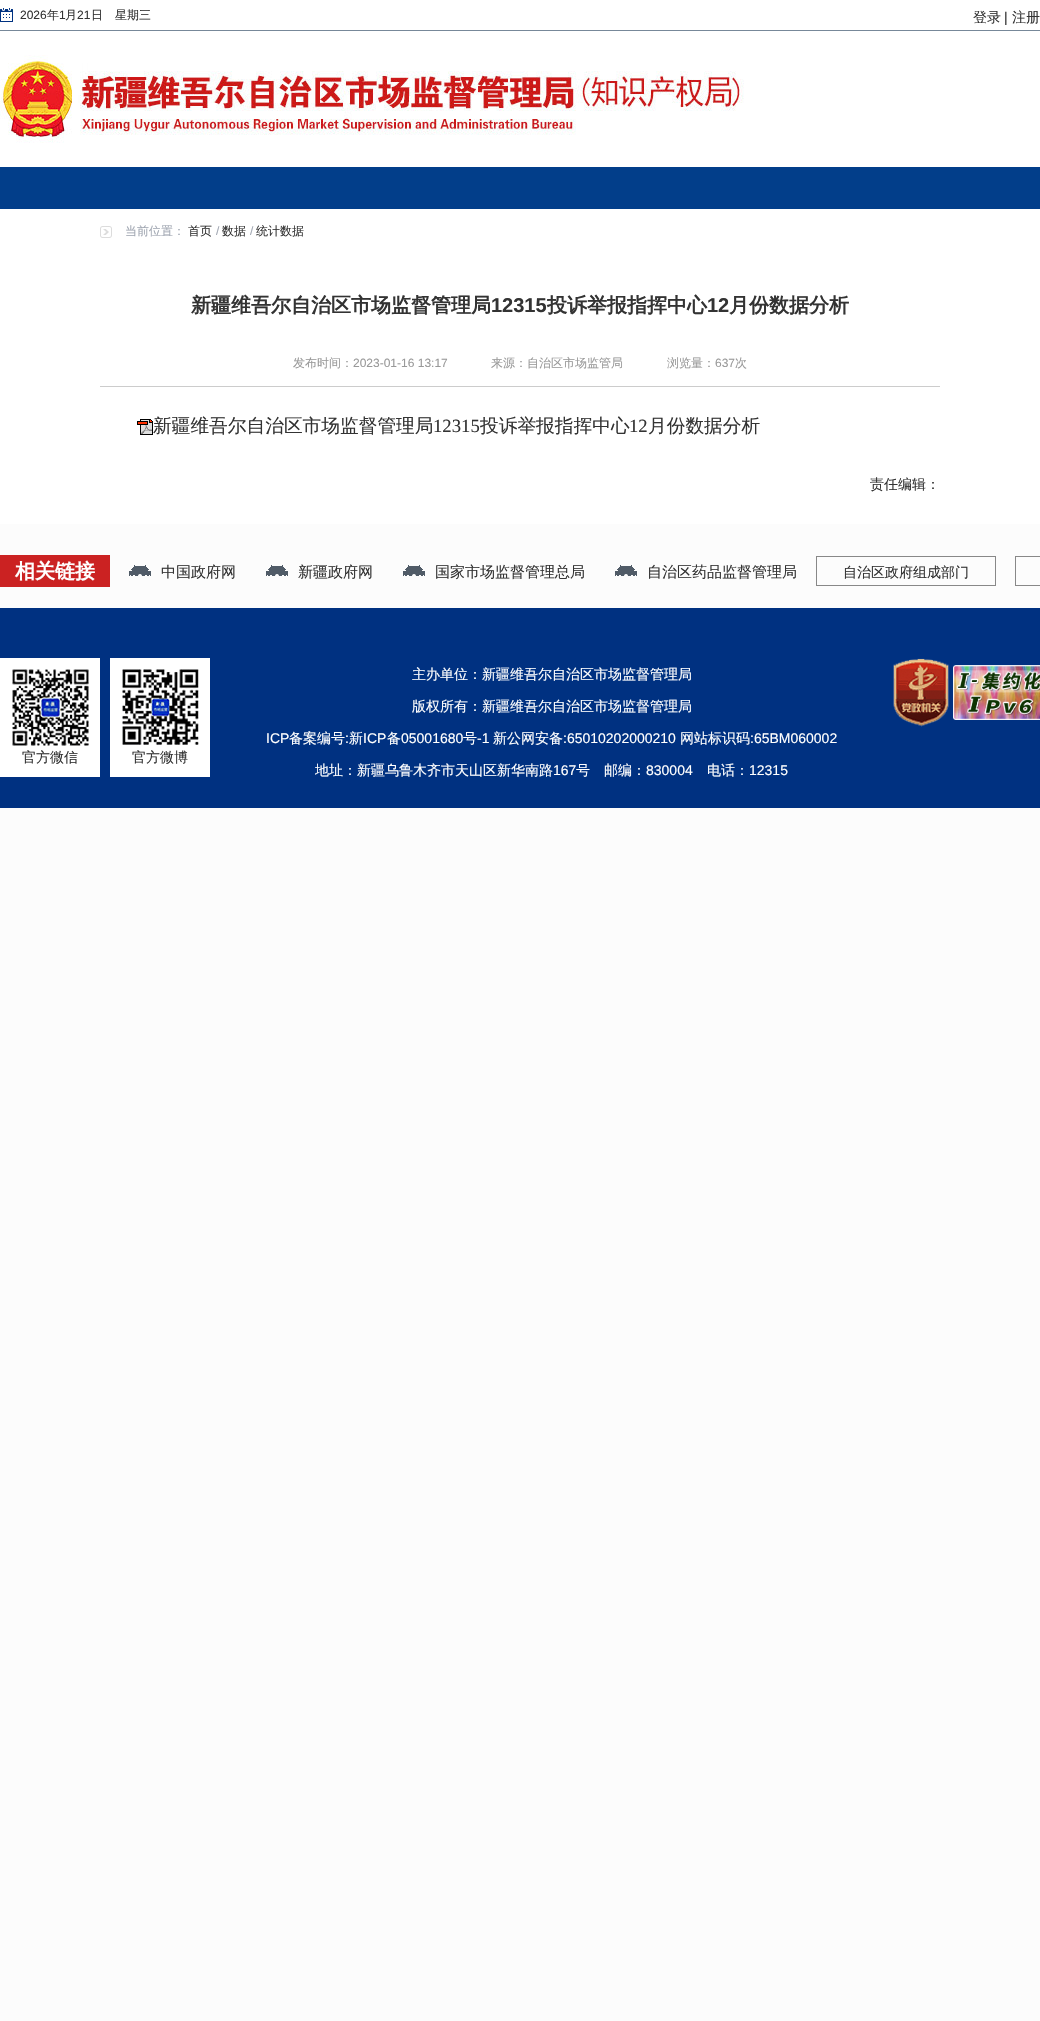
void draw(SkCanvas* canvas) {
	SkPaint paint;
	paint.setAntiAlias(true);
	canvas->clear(0xfffcfcfc);
	paint.setColor(0xffffffff);
	canvas->drawRect(SkRect::MakeXYWH(0, 0, 1040, 167), paint);
	paint.setColor(0xff778899);
	canvas->drawRect(SkRect::MakeXYWH(0, 30, 1040, 1), paint);
	canvas->drawImageRect(SkImages::DeferredFromEncodedData(SkData::MakeFromFileName("img1.png")), SkRect::MakeXYWH(0, 8, 13, 14), SkSamplingOptions());
	SkFont f1(fontMgr->matchFamilyStyle("Liberation Sans", SkFontStyle::Normal()), 12);
	f1.setSubpixel(true);
	paint.setColor(0xff333333);
	canvas->drawString("2026", 20, 19, f1, paint);
	SkFont f2(fontMgr->matchFamilyStyle("WenQuanYi Zen Hei", SkFontStyle(500, SkFontStyle::kNormal_Width, SkFontStyle::kUpright_Slant)), 12);
	f2.setSubpixel(true);
	canvas->drawString("年", 47, 19, f2, paint);
	canvas->drawString("1", 59, 19, f1, paint);
	canvas->drawString("月", 65, 19, f2, paint);
	canvas->drawString("21", 77, 19, f1, paint);
	canvas->drawString("日", 91, 19, f2, paint);
	canvas->drawString("星期三", 115, 19, f2, paint);
	SkFont f3(fontMgr->matchFamilyStyle("WenQuanYi Zen Hei", SkFontStyle(500, SkFontStyle::kNormal_Width, SkFontStyle::kUpright_Slant)), 14);
	f3.setSubpixel(true);
	canvas->drawString("登录", 973, 22, f3, paint);
	SkFont f4(fontMgr->matchFamilyStyle("Liberation Sans", SkFontStyle::Normal()), 14);
	f4.setSubpixel(true);
	canvas->drawString("|", 1004, 22, f4, paint);
	canvas->drawString("注册", 1012, 22, f3, paint);
	canvas->drawImageRect(SkImages::DeferredFromEncodedData(SkData::MakeFromFileName("img2.png")), SkRect::MakeXYWH(0, 55, 744, 88), SkSamplingOptions());
	paint.setColor(0xff023e8a);
	canvas->drawRect(SkRect::MakeXYWH(0, 167, 1040, 42), paint);
	paint.setColor(0xffffffff);
	canvas->drawRect(SkRect::MakeXYWH(0, 209, 1040, 315), paint);
	canvas->drawImageRect(SkImages::DeferredFromEncodedData(SkData::MakeFromFileName("img3.png")), SkRect::MakeXYWH(100, 226, 12, 12), SkSamplingOptions());
	paint.setColor(0xffa1a7b2);
	canvas->drawString("当前位置：", 125, 235, f2, paint);
	paint.setColor(0xff333333);
	canvas->drawString("首页", 188, 235, f2, paint);
	paint.setColor(0xffa1a7b2);
	canvas->drawString("/", 216, 235, f1, paint);
	paint.setColor(0xff333333);
	canvas->drawString("数据", 222, 235, f2, paint);
	paint.setColor(0xffa1a7b2);
	canvas->drawString("/", 250, 235, f1, paint);
	paint.setColor(0xff333333);
	canvas->drawString("统计数据", 256, 235, f2, paint);
	SkFont f5(fontMgr->matchFamilyStyle("WenQuanYi Zen Hei", SkFontStyle::Bold()), 20);
	f5.setSubpixel(true);
	canvas->drawString("新疆维吾尔自治区市场监督管理局", 191, 312, f5, paint);
	SkFont f6(fontMgr->matchFamilyStyle("Liberation Sans", SkFontStyle::Bold()), 20);
	f6.setSubpixel(true);
	canvas->drawString("12315", 491, 312, f6, paint);
	canvas->drawString("投诉举报指挥中心", 547, 312, f5, paint);
	canvas->drawString("12", 707, 312, f6, paint);
	canvas->drawString("月份数据分析", 729, 312, f5, paint);
	paint.setColor(0xffcccccc);
	canvas->drawRect(SkRect::MakeXYWH(100, 386, 840, 1), paint);
	paint.setColor(0xff999999);
	canvas->drawString("发布时间：", 293, 367, f2, paint);
	canvas->drawString("2023-01-16 13:17", 353, 367, f1, paint);
	canvas->drawString("来源：自治区市场监管局", 491, 367, f2, paint);
	canvas->drawString("浏览量：", 667, 367, f2, paint);
	canvas->drawString("637", 715, 367, f1, paint);
	canvas->drawString("次", 735, 367, f2, paint);
	canvas->drawImageRect(SkImages::DeferredFromEncodedData(SkData::MakeFromFileName("img4.png")), SkRect::MakeXYWH(137, 419, 16, 16), SkSamplingOptions());
	SkFont f7(fontMgr->matchFamilyStyle("WenQuanYi Zen Hei", SkFontStyle(500, SkFontStyle::kNormal_Width, SkFontStyle::kUpright_Slant)), 18.7);
	f7.setSubpixel(true);
	paint.setColor(0xff333333);
	canvas->drawString("新疆维吾尔自治区市场监督管理局", 153, 432, f7, paint);
	SkFont f8(fontMgr->matchFamilyStyle("Liberation Serif", SkFontStyle::Normal()), 18.7);
	f8.setSubpixel(true);
	canvas->drawString("12315", 433, 432, f8, paint);
	canvas->drawString("投诉举报指挥中心", 480, 432, f7, paint);
	canvas->drawString("12", 629, 432, f8, paint);
	canvas->drawString("月份数据分析", 648, 432, f7, paint);
	canvas->drawString("责任编辑：", 870, 489, f3, paint);
	paint.setColor(0xffcb2222);
	canvas->drawRect(SkRect::MakeXYWH(0, 555, 110, 32), paint);
	paint.setColor(0xffffffff);
	canvas->drawString("相关链接", 15, 578, f5, paint);
	canvas->drawImageRect(SkImages::DeferredFromEncodedData(SkData::MakeFromFileName("img5.png")), SkRect::MakeXYWH(129, 565, 22, 11), SkSamplingOptions());
	SkFont f9(fontMgr->matchFamilyStyle("WenQuanYi Zen Hei", SkFontStyle(500, SkFontStyle::kNormal_Width, SkFontStyle::kUpright_Slant)), 15);
	f9.setSubpixel(true);
	paint.setColor(0xff333333);
	canvas->drawString("中国政府网", 161, 577, f9, paint);
	canvas->drawImageRect(SkImages::DeferredFromEncodedData(SkData::MakeFromFileName("img5.png")), SkRect::MakeXYWH(266, 565, 22, 11), SkSamplingOptions());
	canvas->drawString("新疆政府网", 298, 577, f9, paint);
	canvas->drawImageRect(SkImages::DeferredFromEncodedData(SkData::MakeFromFileName("img5.png")), SkRect::MakeXYWH(403, 565, 22, 11), SkSamplingOptions());
	canvas->drawString("国家市场监督管理总局", 435, 577, f9, paint);
	canvas->drawImageRect(SkImages::DeferredFromEncodedData(SkData::MakeFromFileName("img5.png")), SkRect::MakeXYWH(615, 565, 22, 11), SkSamplingOptions());
	canvas->drawString("自治区药品监督管理局", 647, 577, f9, paint);
	paint.setStroke(true);
	paint.setStrokeWidth(1);
	paint.setColor(0xff888888);
	canvas->drawRect(SkRect::MakeXYWH(816.5, 556.5, 179, 29), paint);
	paint.setStroke(false);
	paint.setColor(0xff333333);
	canvas->drawString("自治区政府组成部门", 843, 577, f3, paint);
	paint.setStroke(true);
	paint.setColor(0xff888888);
	canvas->drawRect(SkRect::MakeXYWH(1015.5, 556.5, 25, 29), paint);
	paint.setStroke(false);
	paint.setColor(0xff003181);
	canvas->drawRect(SkRect::MakeXYWH(0, 608, 1040, 200), paint);
	paint.setColor(0xffffffff);
	canvas->drawRect(SkRect::MakeXYWH(0, 658, 100, 119), paint);
	canvas->drawImageRect(SkImages::DeferredFromEncodedData(SkData::MakeFromFileName("img6.png")), SkRect::MakeXYWH(12, 669, 77, 77), SkSamplingOptions());
	paint.setColor(0xff333333);
	canvas->drawString("官方微信", 22, 762, f3, paint);
	paint.setColor(0xffffffff);
	canvas->drawRect(SkRect::MakeXYWH(110, 658, 100, 119), paint);
	canvas->drawImageRect(SkImages::DeferredFromEncodedData(SkData::MakeFromFileName("img7.png")), SkRect::MakeXYWH(121, 669, 78, 76), SkSamplingOptions());
	paint.setColor(0xff333333);
	canvas->drawString("官方微博", 132, 762, f3, paint);
	paint.setColor(0xffffffff);
	canvas->drawString("主办单位：新疆维吾尔自治区市场监督管理局", 412, 679, f3, paint);
	canvas->drawString("版权所有：新疆维吾尔自治区市场监督管理局", 412, 711, f3, paint);
	canvas->drawString("ICP", 266, 743, f4, paint);
	canvas->drawString("备案编号", 289, 743, f3, paint);
	canvas->drawString(":", 345, 743, f4, paint);
	canvas->drawString("新", 349, 743, f3, paint);
	canvas->drawString("ICP", 363, 743, f4, paint);
	canvas->drawString("备", 387, 743, f3, paint);
	canvas->drawString("05001680", 401, 743, f4, paint);
	canvas->drawString("号", 463, 743, f3, paint);
	canvas->drawString("-1", 477, 743, f4, paint);
	canvas->drawString("新公网安备", 493, 743, f3, paint);
	canvas->drawString(":65010202000210", 563, 743, f4, paint);
	canvas->drawString("网站标识码", 680, 743, f3, paint);
	canvas->drawString(":65BM060002", 750, 743, f4, paint);
	canvas->drawString("地址：新疆乌鲁木齐市天山区新华南路", 315, 775, f3, paint);
	canvas->drawString("167", 553, 775, f4, paint);
	canvas->drawString("号　邮编：", 576, 775, f3, paint);
	canvas->drawString("830004", 646, 775, f4, paint);
	canvas->drawString("电话：", 707, 775, f3, paint);
	canvas->drawString("12315", 749, 775, f4, paint);
	canvas->drawImageRect(SkImages::DeferredFromEncodedData(SkData::MakeFromFileName("img8.png")), SkRect::MakeXYWH(893, 658, 56, 69), SkSamplingOptions());
	canvas->drawImageRect(SkImages::DeferredFromEncodedData(SkData::MakeFromFileName("img9.png")), SkRect::MakeXYWH(953, 665, 87, 55), SkSamplingOptions());
}
